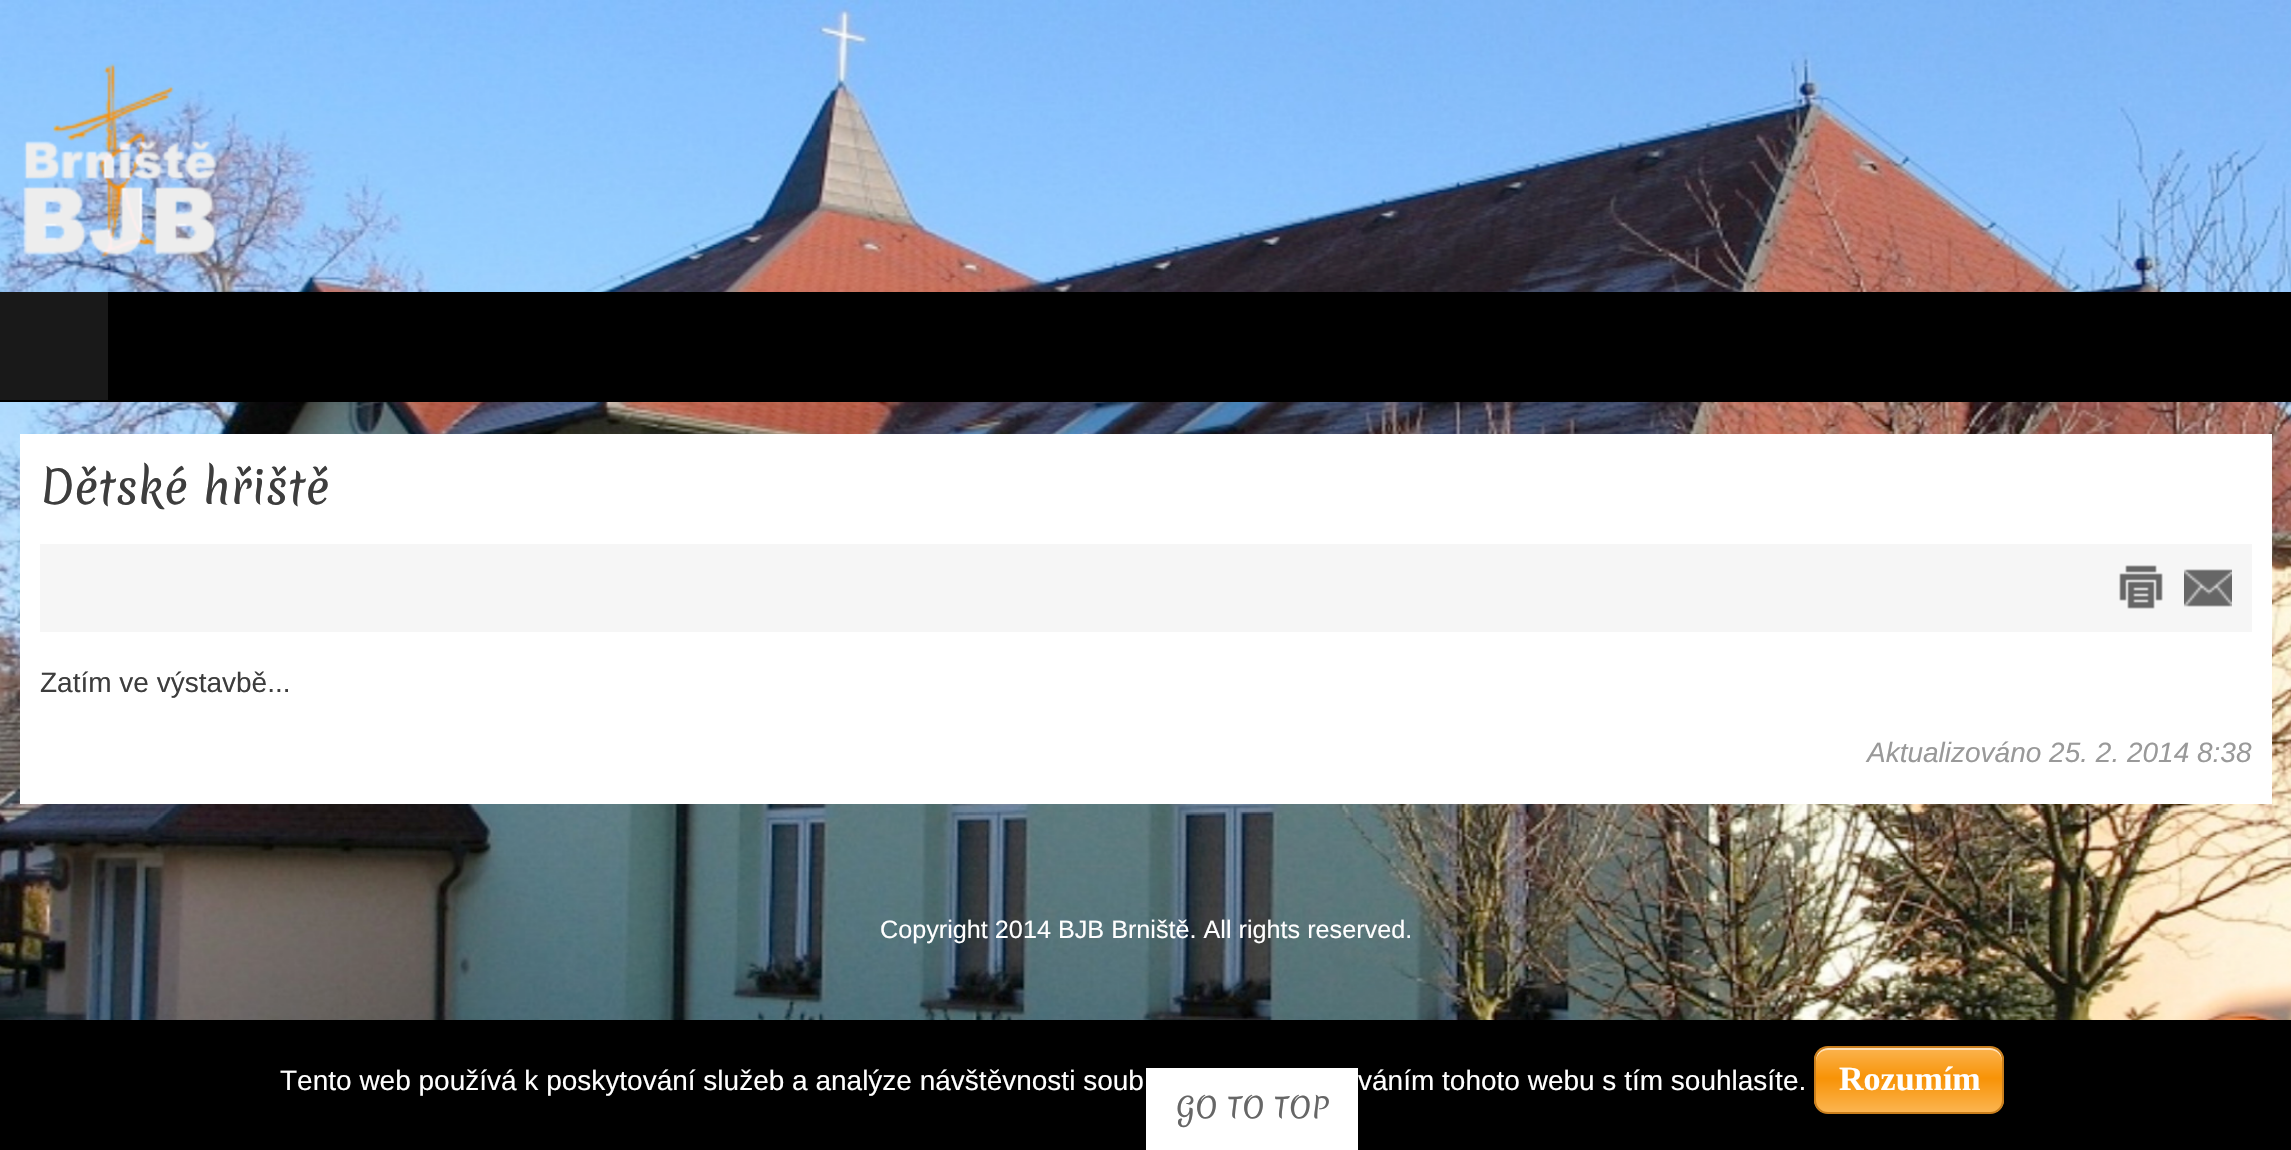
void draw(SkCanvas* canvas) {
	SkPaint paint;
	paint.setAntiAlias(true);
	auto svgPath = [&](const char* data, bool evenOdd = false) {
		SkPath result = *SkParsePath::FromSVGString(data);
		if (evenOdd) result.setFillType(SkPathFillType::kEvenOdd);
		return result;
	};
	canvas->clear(0xffffffff);
	canvas->drawImageRect(SkImages::DeferredFromEncodedData(SkData::MakeFromFileName("img1.png")), SkRect::MakeXYWH(0, 0, 2291, 1020), SkSamplingOptions());
	canvas->drawImageRect(SkImages::DeferredFromEncodedData(SkData::MakeFromFileName("img2.png")), SkRect::MakeXYWH(23, 63, 194, 194), SkSamplingOptions());
	paint.setColor(0xff000000);
	canvas->drawRect(SkRect::MakeXYWH(0, 292, 2291, 110), paint);
	paint.setColor(0xff191919);
	canvas->drawRect(SkRect::MakeXYWH(0, 292, 108, 108), paint);
	paint.setColor(0xffffffff);
	canvas->drawRect(SkRect::MakeXYWH(20, 434, 2252, 370), paint);
	SkFont f1(fontMgr->matchFamilyStyle("Merienda", SkFontStyle::Normal()), 44.75);
	f1.setSubpixel(true);
	paint.setColor(0xff3d3d3d);
	canvas->drawString("Dětské hřiště", 40, 504, f1, paint);
	paint.setColor(0xfff6f6f6);
	canvas->drawRect(SkRect::MakeXYWH(40, 544, 2212, 88), paint);
	canvas->drawImageRect(SkImages::DeferredFromEncodedData(SkData::MakeFromFileName("img3.png")), SkRect::MakeXYWH(2119, 565, 44, 44), SkSamplingOptions());
	canvas->drawImageRect(SkImages::DeferredFromEncodedData(SkData::MakeFromFileName("img4.png")), SkRect::MakeXYWH(2184, 569, 48, 38), SkSamplingOptions());
	SkFont f2(fontMgr->matchFamilyStyle("Liberation Sans", SkFontStyle::Normal()), 28);
	f2.setSubpixel(true);
	paint.setColor(0xff3d3d3d);
	canvas->drawString("Zatím ve výstavbě...", 40, 692, f2, paint);
	SkFont f3(fontMgr->matchFamilyStyle("Liberation Sans", SkFontStyle::Italic()), 28);
	f3.setSubpixel(true);
	paint.setColor(0xff999999);
	canvas->drawString("Aktualizováno 25. 2. 2014 8:38", 1867, 762, f3, paint);
	SkFont f4(fontMgr->matchFamilyStyle("Liberation Sans", SkFontStyle::Normal()), 25.2);
	f4.setSubpixel(true);
	paint.setColor(0xffffffff);
	canvas->drawString("Copyright 2014 BJB Brniště. All rights reserved.", 880, 938, f4, paint);
	paint.setColor(0xff000000);
	canvas->drawRect(SkRect::MakeXYWH(0, 1020, 2291, 130), paint);
	paint.setColor(0xffffffff);
	canvas->drawString("Tento web používá k poskytování služeb a analýze návštěvnosti soub", 280, 1090, f2, paint);
	canvas->drawString("váním tohoto webu s tím souhlasíte.", 1358, 1090, f2, paint);
	canvas->save();
	canvas->clipPath(svgPath("M1828 1046H1990C1997.5 1046 2004 1052.5 2004 1060V1100C2004 1107.5 1997.5 1114 1990 1114H1828C1820.5 1114 1814 1107.5 1814 1100V1060C1814 1052.5 1820.5 1046 1828 1046Z"), true);
	{
		const SkColor colors[] = {0xfffbb450, 0xfff89306, 0xfffbb450};
		const float stops[] = {0, 0.47, 1};
		const SkPoint ends[] = {{1909, 1048}, {1909, 1112}};
		paint.setShader(SkGradientShader::MakeLinear(ends, colors, stops, 3, SkTileMode::kClamp));
		paint.setAlpha(255);
	}
	canvas->drawRect(SkRect::MakeXYWH(1814, 1048, 190, 64), paint);
	canvas->restore();
	paint.setShader(nullptr);
	paint.setColor(0xffffe0b5);
	canvas->drawPath(svgPath("M1828 1050H1990C1997 1050 2002 1055 2002 1062V1060C2002 1053 1997 1048 1990 1048H1828C1821 1048 1816 1053 1816 1060V1062C1816 1055 1821 1050 1828 1050Z"), paint);
	paint.setStroke(true);
	paint.setStrokeWidth(2);
	paint.setColor(0xffc97e1c);
	canvas->drawRoundRect(SkRect::MakeXYWH(1815, 1047, 188, 66), 13, 13, paint);
	SkFont f5(fontMgr->matchFamilyStyle("Liberation Serif", SkFontStyle::Bold()), 34);
	f5.setSubpixel(true);
	paint.setStroke(false);
	paint.setColor(0xffffffff);
	canvas->drawString("Rozumím", 1839, 1090, f5, paint);
	canvas->drawRect(SkRect::MakeXYWH(1146, 1068, 212, 82), paint);
	SkFont f6(fontMgr->matchFamilyStyle("Merienda", SkFontStyle::Normal()), 28);
	f6.setSubpixel(true);
	paint.setColor(0xff666666);
	canvas->drawString("GO TO TOP", 1176, 1118, f6, paint);
}
